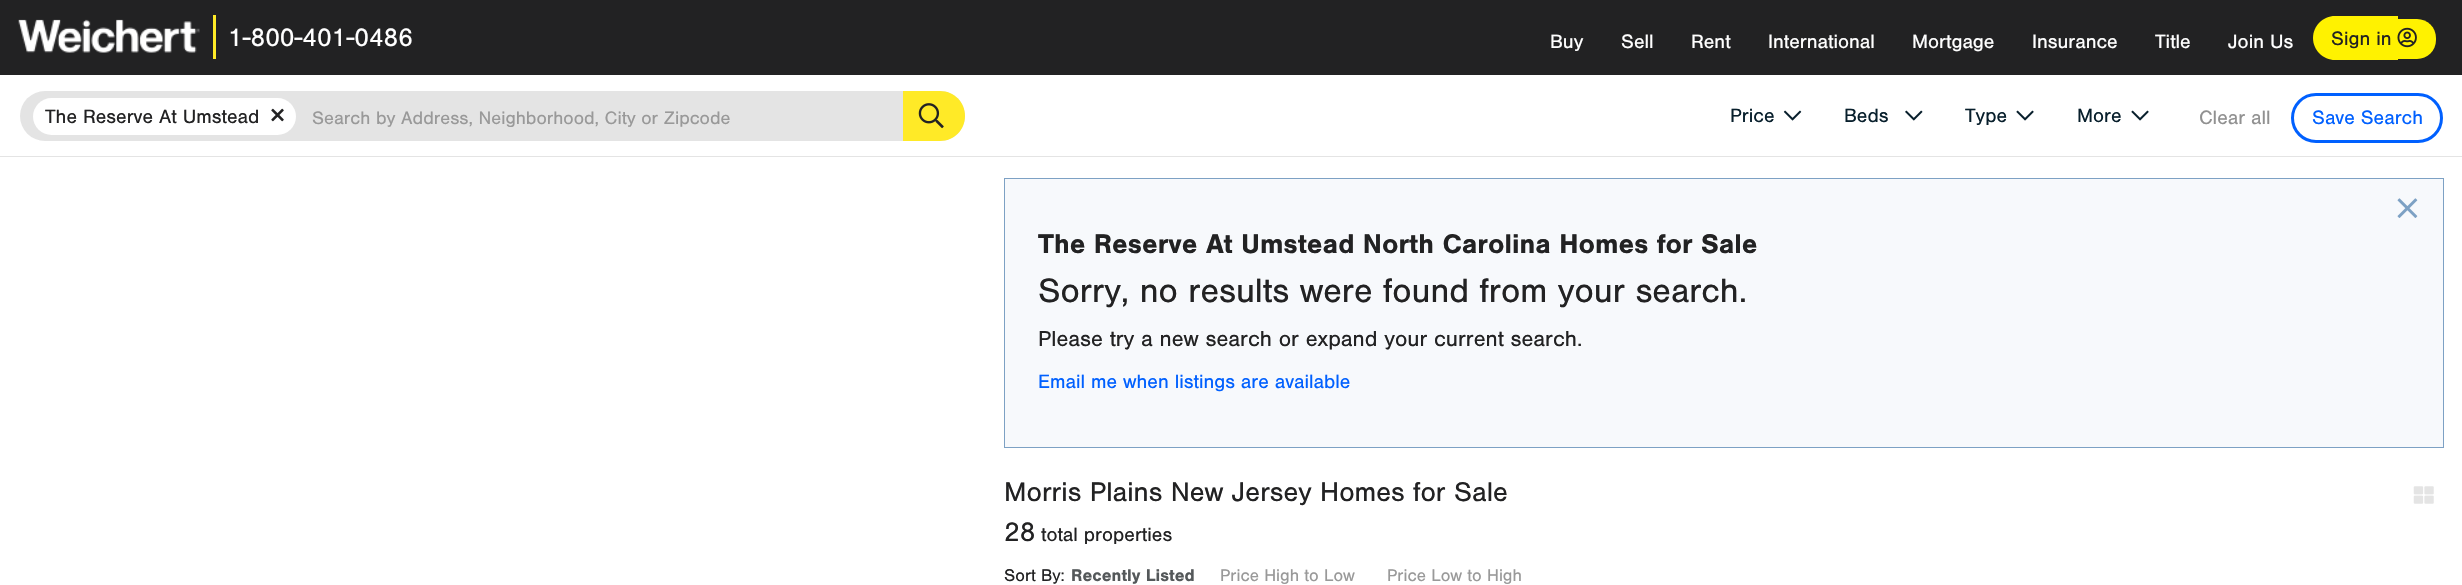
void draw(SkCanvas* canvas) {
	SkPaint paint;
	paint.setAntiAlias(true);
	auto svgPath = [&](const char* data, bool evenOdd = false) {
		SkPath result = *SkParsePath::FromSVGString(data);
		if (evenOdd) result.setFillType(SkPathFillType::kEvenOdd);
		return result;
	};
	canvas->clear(0xffffffff);
	paint.setColor(0xff222223);
	canvas->drawRect(SkRect::MakeXYWH(0, 0, 2462, 75), paint);
	canvas->drawImageRect(SkImages::DeferredFromEncodedData(SkData::MakeFromFileName("img1.png")), SkRect::MakeXYWH(18, 19, 182, 34), SkSamplingOptions());
	paint.setColor(0xffffea27);
	canvas->drawRect(SkRect::MakeXYWH(213, 15, 3, 44), paint);
	SkFont f1(fontMgr->matchFamilyStyle("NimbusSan", SkFontStyle::Normal()), 26.25);
	f1.setSubpixel(true);
	paint.setColor(0xffffffff);
	canvas->drawString("1-800-401-0486", 228, 46, f1, paint);
	SkFont f2(fontMgr->matchFamilyStyle("NimbusSan", SkFontStyle::Normal()), 20);
	f2.setSubpixel(true);
	canvas->drawString("Buy", 1550, 48, f2, paint);
	canvas->drawString("Sell", 1621, 48, f2, paint);
	canvas->drawString("Rent", 1691, 48, f2, paint);
	canvas->drawString("International", 1768, 48, f2, paint);
	canvas->drawString("Mortgage", 1912, 48, f2, paint);
	canvas->drawString("Insurance", 2032, 48, f2, paint);
	canvas->drawString("Title", 2155, 48, f2, paint);
	canvas->drawString("Join Us", 2228, 48, f2, paint);
	paint.setColor(0xfffff200);
	canvas->drawPath(svgPath("M2335 16H2398V60H2335C2323 60 2313 50 2313 38C2313 26 2323 16 2335 16Z"), paint);
	canvas->drawPath(svgPath("M2398 19H2417C2427.5 19 2436 27.5 2436 38V40C2436 50.5 2427.5 59 2417 59H2398Z"), paint);
	paint.setColor(0xff222223);
	canvas->drawString("Sign in", 2331, 45, f2, paint);
	canvas->drawImageRect(SkImages::DeferredFromEncodedData(SkData::MakeFromFileName("img2.png")), SkRect::MakeXYWH(2397, 27, 20, 21), SkSamplingOptions());
	paint.setColor(0xffe4e4e4);
	canvas->drawRect(SkRect::MakeXYWH(0, 156, 2462, 1), paint);
	canvas->drawRoundRect(SkRect::MakeXYWH(20, 91, 945, 50), 25, 25, paint);
	paint.setColor(0xffffffff);
	canvas->drawRoundRect(SkRect::MakeXYWH(33, 98, 263, 37), 18.5, 18.5, paint);
	paint.setColor(0xff222223);
	canvas->drawString("The Reserve At Umstead", 45, 123, f2, paint);
	canvas->drawImageRect(SkImages::DeferredFromEncodedData(SkData::MakeFromFileName("img3.png")), SkRect::MakeXYWH(271, 108, 13, 14), SkSamplingOptions());
	SkFont f3(fontMgr->matchFamilyStyle("NimbusSan", SkFontStyle::Normal()), 18.75);
	f3.setSubpixel(true);
	paint.setColor(0xff999999);
	canvas->drawString("Search by Address, Neighborhood, City or Zipcode", 312, 124, f3, paint);
	paint.setColor(0xffffea27);
	canvas->drawPath(svgPath("M903 91H940C954 91 965 102 965 116C965 130 954 141 940 141H903Z"), paint);
	canvas->drawImageRect(SkImages::DeferredFromEncodedData(SkData::MakeFromFileName("img4.png")), SkRect::MakeXYWH(918, 103, 26, 26), SkSamplingOptions());
	paint.setColor(0xff081f2c);
	canvas->drawString("Price", 1730, 122, f2, paint);
	canvas->drawImageRect(SkImages::DeferredFromEncodedData(SkData::MakeFromFileName("img5.png")), SkRect::MakeXYWH(1783, 110, 19, 11), SkSamplingOptions());
	canvas->drawString("Beds", 1844, 122, f2, paint);
	canvas->drawImageRect(SkImages::DeferredFromEncodedData(SkData::MakeFromFileName("img6.png")), SkRect::MakeXYWH(1905, 110, 18, 11), SkSamplingOptions());
	canvas->drawString("Type", 1965, 122, f2, paint);
	canvas->drawImageRect(SkImages::DeferredFromEncodedData(SkData::MakeFromFileName("img7.png")), SkRect::MakeXYWH(2016, 110, 18, 11), SkSamplingOptions());
	canvas->drawString("More", 2077, 122, f2, paint);
	canvas->drawImageRect(SkImages::DeferredFromEncodedData(SkData::MakeFromFileName("img7.png")), SkRect::MakeXYWH(2131, 110, 18, 11), SkSamplingOptions());
	paint.setColor(0xff919191);
	canvas->drawString("Clear all", 2199, 124, f2, paint);
	paint.setStroke(true);
	paint.setStrokeWidth(3);
	paint.setColor(0xff0060ff);
	canvas->drawRoundRect(SkRect::MakeXYWH(2292.5, 94.5, 149, 47), 23.5, 23.5, paint);
	paint.setStroke(false);
	canvas->drawString("Save Search", 2312, 124, f2, paint);
	paint.setColor(0xfff7f9fc);
	canvas->drawRect(SkRect::MakeXYWH(1004.5, 178.5, 1439, 269), paint);
	paint.setStroke(true);
	paint.setStrokeWidth(1);
	paint.setColor(0xff7da1c4);
	canvas->drawRect(SkRect::MakeXYWH(1004.5, 178.5, 1439, 269), paint);
	canvas->drawImageRect(SkImages::DeferredFromEncodedData(SkData::MakeFromFileName("img8.png")), SkRect::MakeXYWH(2397, 198, 21, 20), SkSamplingOptions());
	SkFont f4(fontMgr->matchFamilyStyle("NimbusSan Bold", SkFontStyle::Bold()), 28);
	f4.setSubpixel(true);
	paint.setStroke(false);
	paint.setColor(0xff222223);
	canvas->drawString("The Reserve At Umstead North Carolina Homes for Sale", 1038, 253, f4, paint);
	SkFont f5(fontMgr->matchFamilyStyle("NimbusSan", SkFontStyle::Normal()), 35);
	f5.setSubpixel(true);
	canvas->drawString("Sorry, no results were found from your search.", 1038, 302, f5, paint);
	SkFont f6(fontMgr->matchFamilyStyle("NimbusSan", SkFontStyle::Normal()), 22.5);
	f6.setSubpixel(true);
	canvas->drawString("Please try a new search or expand your current search.", 1038, 346, f6, paint);
	paint.setColor(0xff0060ff);
	canvas->drawString("Email me when listings are available", 1038, 388, f2, paint);
	SkFont f7(fontMgr->matchFamilyStyle("NimbusSan", SkFontStyle::Normal()), 28);
	f7.setSubpixel(true);
	paint.setColor(0xff222223);
	canvas->drawString("Morris Plains New Jersey Homes for Sale", 1004, 501, f7, paint);
	canvas->drawString("28", 1004, 541, f7, paint);
	canvas->drawString("total properties", 1041, 541, f2, paint);
	canvas->drawImageRect(SkImages::DeferredFromEncodedData(SkData::MakeFromFileName("img9.png")), SkRect::MakeXYWH(2413, 486, 21, 18), SkSamplingOptions());
	SkFont f8(fontMgr->matchFamilyStyle("NimbusSan", SkFontStyle::Normal()), 17.5);
	f8.setSubpixel(true);
	canvas->drawString("Sort By:", 1004, 581, f8, paint);
	SkFont f9(fontMgr->matchFamilyStyle("NimbusSan Bold", SkFontStyle::Bold()), 17.5);
	f9.setSubpixel(true);
	paint.setColor(0xff54585a);
	canvas->drawString("Recently Listed", 1071, 581, f9, paint);
	paint.setColor(0xff999999);
	canvas->drawString("Price High to Low", 1220, 581, f8, paint);
	canvas->drawString("Price Low to High", 1387, 581, f8, paint);
}
